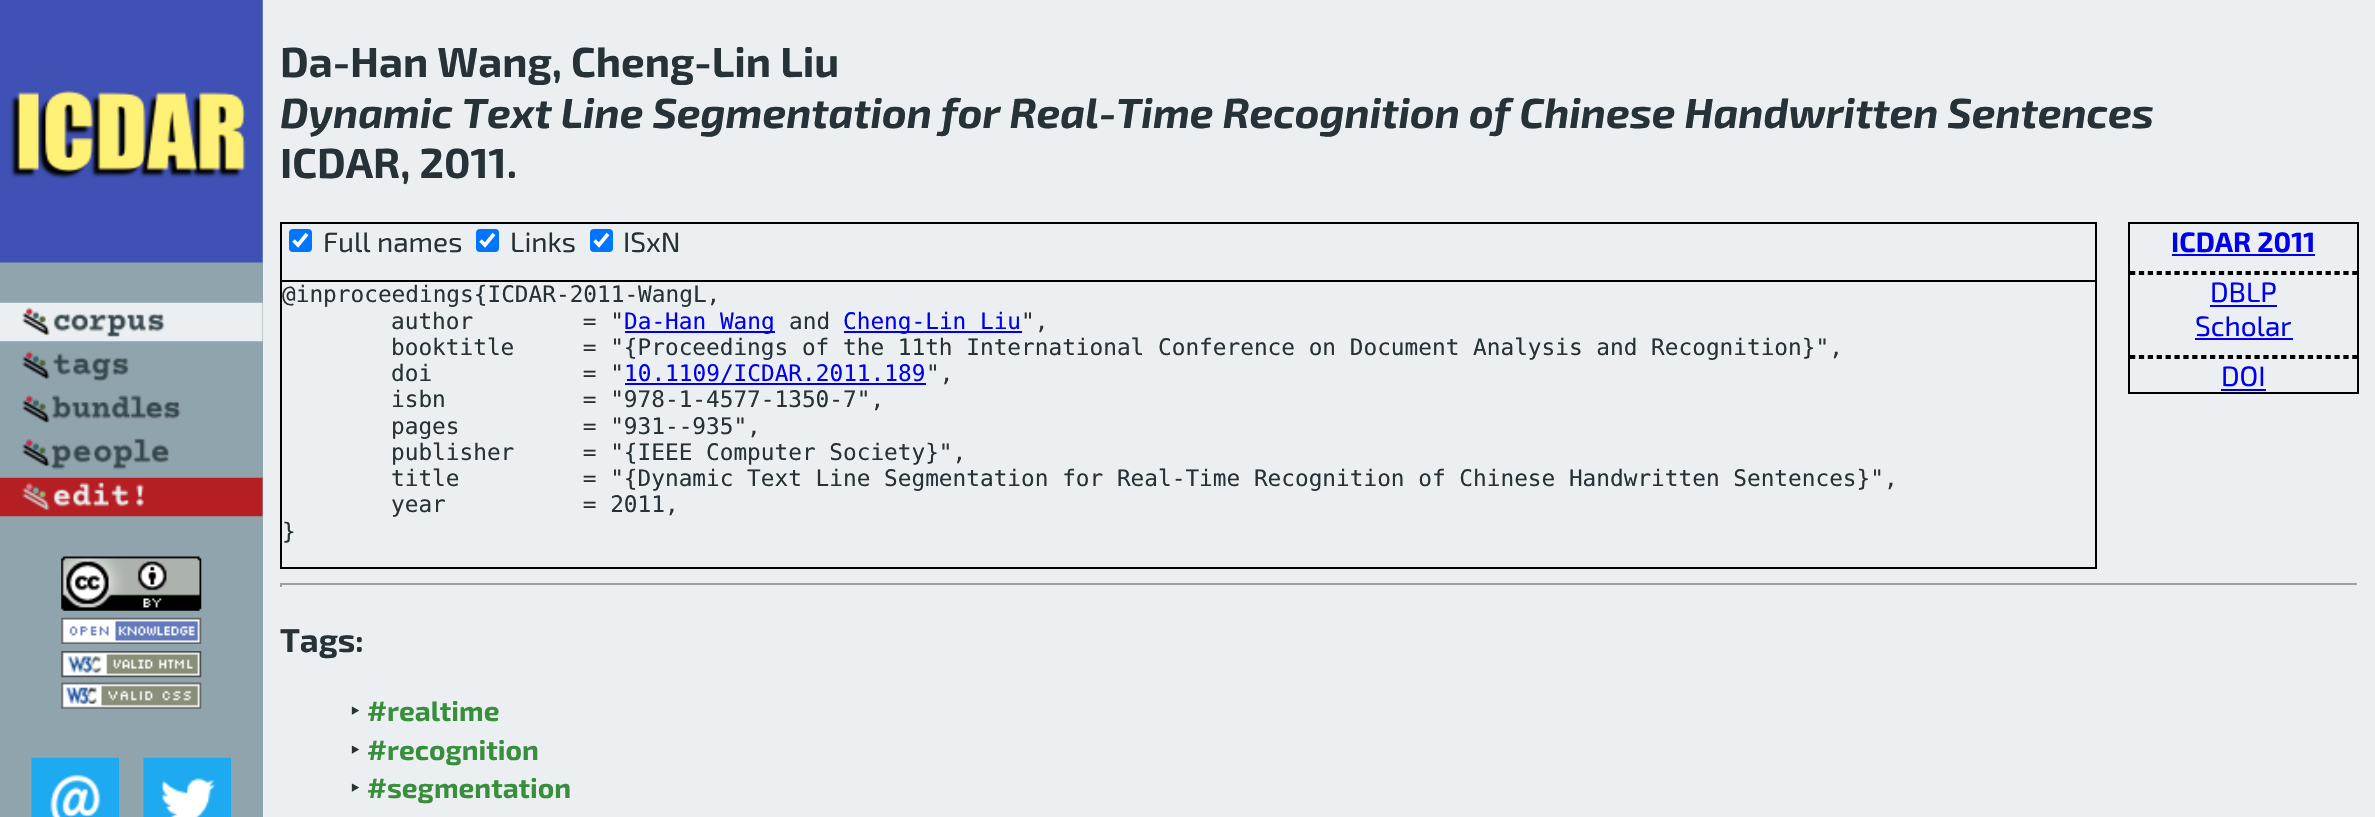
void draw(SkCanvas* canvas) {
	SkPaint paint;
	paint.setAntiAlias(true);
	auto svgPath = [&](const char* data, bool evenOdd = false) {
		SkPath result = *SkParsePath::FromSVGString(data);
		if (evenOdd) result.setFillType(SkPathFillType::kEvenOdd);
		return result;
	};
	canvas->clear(0xffeceff1);
	paint.setColor(0xff90a4ae);
	canvas->drawRect(SkRect::MakeXYWH(0, 0, 263, 817), paint);
	canvas->drawImageRect(SkImages::DeferredFromEncodedData(SkData::MakeFromFileName("img1.png")), SkRect::MakeXYWH(0, 0, 263, 263), SkSamplingOptions());
	canvas->drawImageRect(SkImages::DeferredFromEncodedData(SkData::MakeFromFileName("img2.png")), SkRect::MakeXYWH(0, 302, 263, 40), SkSamplingOptions());
	canvas->drawImageRect(SkImages::DeferredFromEncodedData(SkData::MakeFromFileName("img3.png")), SkRect::MakeXYWH(22, 351, 107, 31), SkSamplingOptions());
	canvas->drawImageRect(SkImages::DeferredFromEncodedData(SkData::MakeFromFileName("img4.png")), SkRect::MakeXYWH(22, 395, 159, 29), SkSamplingOptions());
	canvas->drawImageRect(SkImages::DeferredFromEncodedData(SkData::MakeFromFileName("img5.png")), SkRect::MakeXYWH(22, 438, 148, 32), SkSamplingOptions());
	canvas->drawImageRect(SkImages::DeferredFromEncodedData(SkData::MakeFromFileName("img6.png")), SkRect::MakeXYWH(0, 477, 263, 40), SkSamplingOptions());
	canvas->drawImageRect(SkImages::DeferredFromEncodedData(SkData::MakeFromFileName("img7.png")), SkRect::MakeXYWH(61, 556, 141, 55), SkSamplingOptions());
	canvas->drawImageRect(SkImages::DeferredFromEncodedData(SkData::MakeFromFileName("img8.png")), SkRect::MakeXYWH(61, 617, 141, 27), SkSamplingOptions());
	canvas->drawImageRect(SkImages::DeferredFromEncodedData(SkData::MakeFromFileName("img9.png")), SkRect::MakeXYWH(61, 651, 141, 27), SkSamplingOptions());
	canvas->drawImageRect(SkImages::DeferredFromEncodedData(SkData::MakeFromFileName("img10.png")), SkRect::MakeXYWH(61, 682, 141, 27), SkSamplingOptions());
	canvas->drawImageRect(SkImages::DeferredFromEncodedData(SkData::MakeFromFileName("img11.png")), SkRect::MakeXYWH(31, 757, 88, 60), SkSamplingOptions());
	canvas->drawImageRect(SkImages::DeferredFromEncodedData(SkData::MakeFromFileName("img12.png")), SkRect::MakeXYWH(143, 757, 88, 60), SkSamplingOptions());
	SkFont f1(fontMgr->matchFamilyStyle("Exo 2", SkFontStyle::Bold()), 42);
	f1.setSubpixel(true);
	paint.setColor(0xff263238);
	canvas->drawString("Da-Han Wang, Cheng-Lin Liu", 280, 77, f1, paint);
	SkFont f2(fontMgr->matchFamilyStyle("Exo 2", SkFontStyle::BoldItalic()), 42);
	f2.setSubpixel(true);
	canvas->drawString("Dynamic Text Line Segmentation for Real-Time Recognition of Chinese Handwritten Sentences", 280, 128, f2, paint);
	canvas->drawString("ICDAR, 2011.", 280, 178, f1, paint);
	paint.setStroke(true);
	paint.setStrokeWidth(2);
	paint.setColor(0xff000000);
	canvas->drawRect(SkRect::MakeXYWH(281, 223, 1815, 345), paint);
	paint.setStroke(false);
	paint.setColor(0xff0075ff);
	canvas->drawRoundRect(SkRect::MakeXYWH(289, 229, 23, 23), 4, 4, paint);
	paint.setStroke(true);
	paint.setStrokeWidth(3.6);
	paint.setColor(0xffffffff);
	canvas->drawPath(svgPath("M293.5 240.5L298 245L307 234"), paint);
	SkFont f3(fontMgr->matchFamilyStyle("Exo 2", SkFontStyle::Normal()), 28);
	f3.setSubpixel(true);
	paint.setStroke(false);
	paint.setColor(0xff263238);
	canvas->drawString("Full names", 323, 252, f3, paint);
	paint.setColor(0xff0075ff);
	canvas->drawRoundRect(SkRect::MakeXYWH(476, 229, 23, 23), 4, 4, paint);
	paint.setStroke(true);
	paint.setColor(0xffffffff);
	canvas->drawPath(svgPath("M480.5 240.5L485 245L494 234"), paint);
	paint.setStroke(false);
	paint.setColor(0xff263238);
	canvas->drawString("Links", 510, 252, f3, paint);
	paint.setColor(0xff0075ff);
	canvas->drawRoundRect(SkRect::MakeXYWH(590, 229, 23, 23), 4, 4, paint);
	paint.setStroke(true);
	paint.setColor(0xffffffff);
	canvas->drawPath(svgPath("M594.5 240.5L599 245L608 234"), paint);
	paint.setStroke(false);
	paint.setColor(0xff263238);
	canvas->drawString("ISxN", 623, 252, f3, paint);
	paint.setColor(0xff000000);
	canvas->drawRect(SkRect::MakeXYWH(282, 280, 1813, 2), paint);
	SkFont f4(fontMgr->matchFamilyStyle("DejaVu Sans Mono", SkFontStyle::Normal()), 22.75);
	f4.setSubpixel(true);
	paint.setColor(0xff263238);
	canvas->drawString("@inproceedings{ICDAR-2011-WangL,", 282, 302, f4, paint);
	canvas->drawString("author        = \"", 391, 329, f4, paint);
	paint.setColor(0xff0000ee);
	canvas->drawRect(SkRect::MakeXYWH(625, 331, 150, 2), paint);
	canvas->drawString("Da-Han Wang", 624, 329, f4, paint);
	paint.setColor(0xff263238);
	canvas->drawString("and", 789, 329, f4, paint);
	paint.setColor(0xff0000ee);
	canvas->drawRect(SkRect::MakeXYWH(844, 331, 178, 2), paint);
	canvas->drawString("Cheng-Lin Liu", 843, 329, f4, paint);
	paint.setColor(0xff263238);
	canvas->drawString("\",", 1021, 329, f4, paint);
	canvas->drawString("booktitle     = \"{Proceedings of the 11th International Conference on Document Analysis and Recognition}\",", 391, 355, f4, paint);
	canvas->drawString("doi           = \"", 391, 381, f4, paint);
	paint.setColor(0xff0000ee);
	canvas->drawRect(SkRect::MakeXYWH(625, 383, 301, 2), paint);
	canvas->drawString("10.1109/ICDAR.2011.189", 624, 381, f4, paint);
	paint.setColor(0xff263238);
	canvas->drawString("\",", 926, 381, f4, paint);
	canvas->drawString("isbn          = \"978-1-4577-1350-7\",", 391, 407, f4, paint);
	canvas->drawString("pages         = \"931--935\",", 391, 434, f4, paint);
	canvas->drawString("publisher     = \"{IEEE Computer Society}\",", 391, 460, f4, paint);
	canvas->drawString("title         = \"{Dynamic Text Line Segmentation for Real-Time Recognition of Chinese Handwritten Sentences}\",", 391, 486, f4, paint);
	canvas->drawString("year          = 2011,", 391, 512, f4, paint);
	canvas->drawString("}", 282, 539, f4, paint);
	paint.setStroke(true);
	paint.setStrokeWidth(2);
	paint.setColor(0xff000000);
	canvas->drawRect(SkRect::MakeXYWH(2129, 223, 229, 170), paint);
	SkFont f5(fontMgr->matchFamilyStyle("Exo 2", SkFontStyle::Bold()), 28);
	f5.setSubpixel(true);
	paint.setStroke(false);
	paint.setColor(0xff0000ee);
	canvas->drawString("ICDAR 2011", 2171, 252, f5, paint);
	canvas->drawRect(SkRect::MakeXYWH(2172, 254, 143, 2), paint);
	paint.setStroke(true);
	paint.setStrokeWidth(1.8);
	paint.setColor(0xff000000);
	paint.setPathEffect(SkDashPathEffect::Make({{5.25f, 3.64f}}, 0));
	canvas->drawPath(svgPath("M2130 272H2357"), paint);
	paint.setPathEffect(nullptr);
	paint.setStroke(false);
	canvas->drawRect(SkRect::MakeXYWH(2356, 271, 1, 4), paint);
	paint.setStroke(true);
	paint.setPathEffect(SkDashPathEffect::Make({{5.25f, 3.64f}}, 0));
	canvas->drawPath(svgPath("M2130 274H2357"), paint);
	paint.setPathEffect(nullptr);
	paint.setStroke(false);
	canvas->drawRect(SkRect::MakeXYWH(2130, 271, 2, 4), paint);
	paint.setColor(0xff0000ee);
	canvas->drawString("DBLP", 2210, 302, f3, paint);
	canvas->drawRect(SkRect::MakeXYWH(2210, 305, 67, 2), paint);
	canvas->drawString("Scholar", 2195, 336, f3, paint);
	canvas->drawRect(SkRect::MakeXYWH(2195, 338, 98, 2), paint);
	paint.setStroke(true);
	paint.setColor(0xff000000);
	paint.setPathEffect(SkDashPathEffect::Make({{5.25f, 3.64f}}, 0));
	canvas->drawPath(svgPath("M2130 356H2357"), paint);
	paint.setPathEffect(nullptr);
	paint.setStroke(false);
	canvas->drawRect(SkRect::MakeXYWH(2356, 355, 1, 4), paint);
	paint.setStroke(true);
	paint.setPathEffect(SkDashPathEffect::Make({{5.25f, 3.64f}}, 0));
	canvas->drawPath(svgPath("M2130 358H2357"), paint);
	paint.setPathEffect(nullptr);
	paint.setStroke(false);
	canvas->drawRect(SkRect::MakeXYWH(2130, 355, 2, 4), paint);
	paint.setColor(0xff0000ee);
	canvas->drawString("DOI", 2221, 386, f3, paint);
	canvas->drawRect(SkRect::MakeXYWH(2221, 389, 45, 2), paint);
	paint.setColor(0xff9f9f9f);
	canvas->drawRect(SkRect::MakeXYWH(280, 583, 2079, 2), paint);
	paint.setColor(0xffeeeeee);
	canvas->drawRect(SkRect::MakeXYWH(2357, 583, 2, 4), paint);
	canvas->drawRect(SkRect::MakeXYWH(280, 585, 2079, 2), paint);
	paint.setColor(0xff9f9f9f);
	canvas->drawRect(SkRect::MakeXYWH(280, 583, 2, 4), paint);
	SkFont f6(fontMgr->matchFamilyStyle("Exo 2", SkFontStyle::Bold()), 33);
	f6.setSubpixel(true);
	paint.setColor(0xff263238);
	canvas->drawString("Tags:", 280, 652, f6, paint);
	SkFont f7(fontMgr->matchFamilyStyle("Noto Sans", SkFontStyle::Normal()), 28);
	f7.setSubpixel(true);
	canvas->drawString("‣", 350, 721, f7, paint);
	paint.setColor(0xff388e3c);
	canvas->drawString("#realtime", 367, 721, f5, paint);
	paint.setColor(0xff263238);
	canvas->drawString("‣", 350, 760, f7, paint);
	paint.setColor(0xff388e3c);
	canvas->drawString("#recognition", 367, 760, f5, paint);
	paint.setColor(0xff263238);
	canvas->drawString("‣", 350, 798, f7, paint);
	paint.setColor(0xff388e3c);
	canvas->drawString("#segmentation", 367, 798, f5, paint);
}
